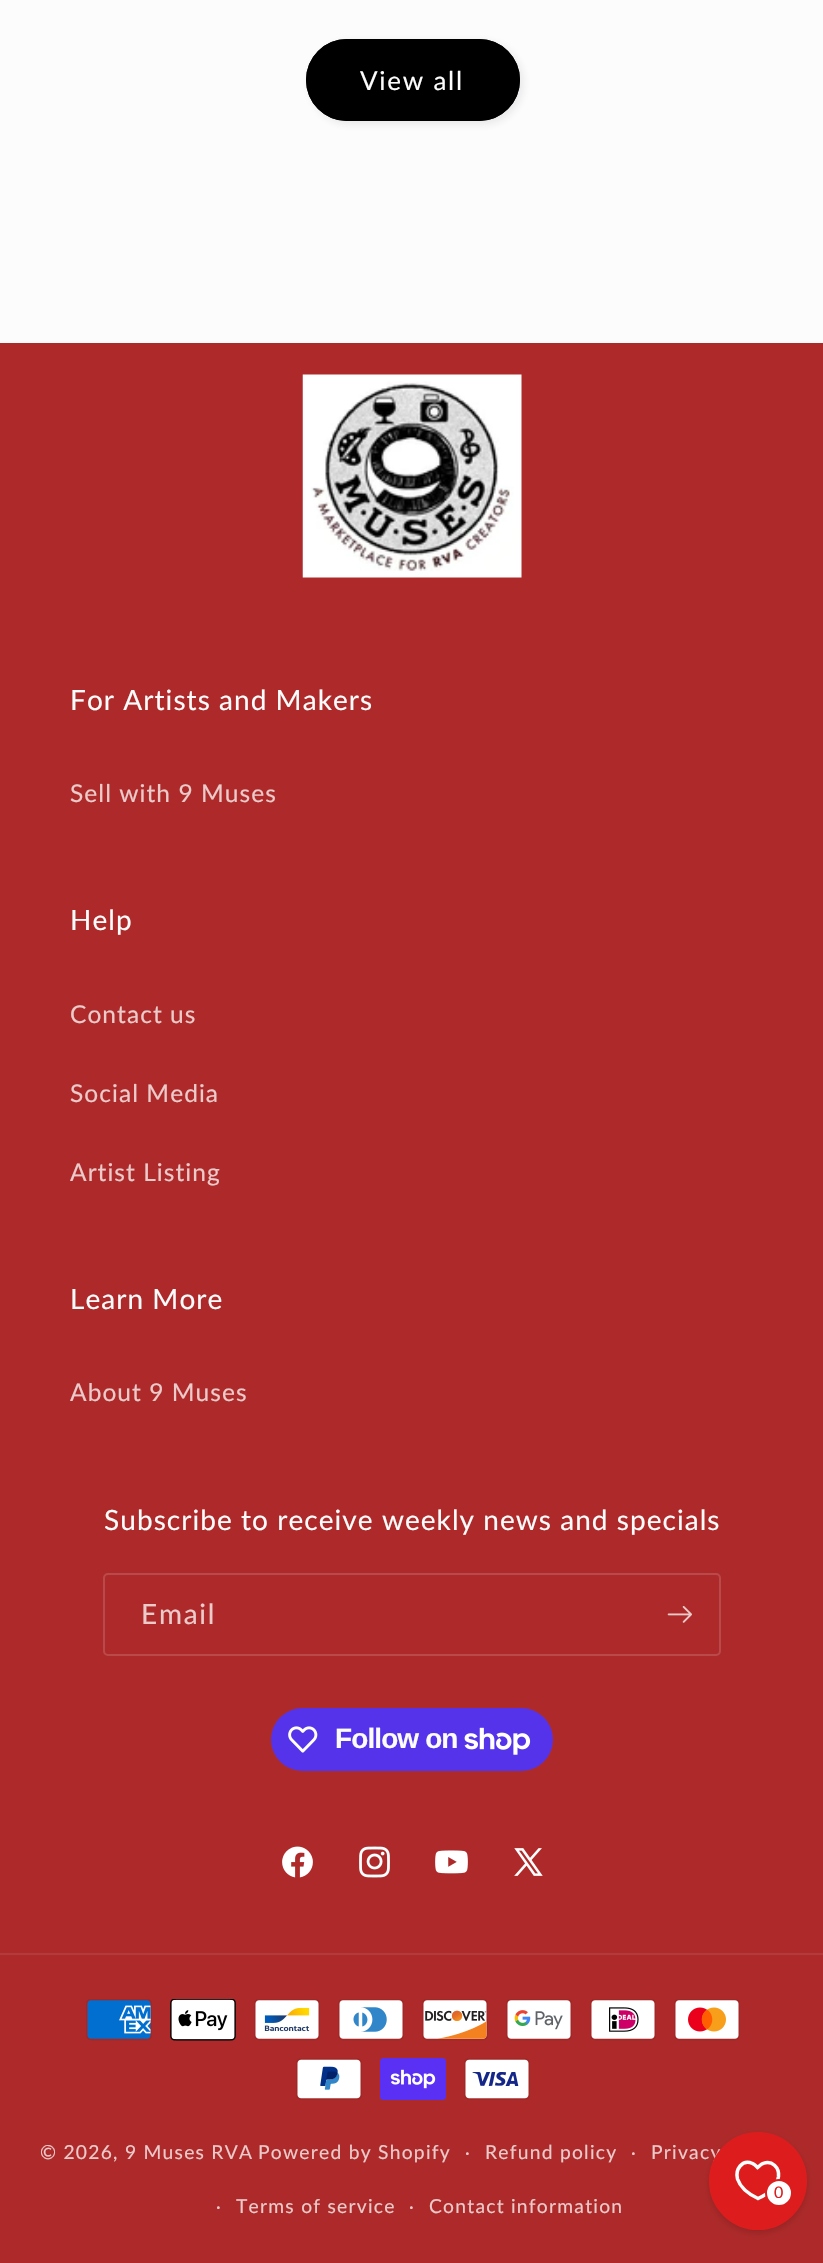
void draw(SkCanvas* canvas) {
	SkPaint paint;
	paint.setAntiAlias(true);
	auto spacedText = [&](const char* s, float x, float y, const SkFont& font, const SkPaint& ink, float letter, float word) {
		std::vector<SkGlyphID> glyphs(font.countText(s, strlen(s), SkTextEncoding::kUTF8));
		std::vector<float> xs(glyphs.size());
		font.textToGlyphs(s, strlen(s), SkTextEncoding::kUTF8, glyphs);
		font.getXPos(glyphs, xs, x);
		float extra = 0;
		for (size_t i = 0; i < glyphs.size(); i++) {
			xs[i] += extra;
			extra += letter + word * (glyphs[i] == font.unicharToGlyph(' '));
		}
		canvas->drawTextBlob(SkTextBlob::MakeFromPosHGlyphs(glyphs, xs, y, font), 0, 0, ink);
	};
	auto svgPath = [&](const char* data, bool evenOdd = false) {
		SkPath result = *SkParsePath::FromSVGString(data);
		if (evenOdd) result.setFillType(SkPathFillType::kEvenOdd);
		return result;
	};
	canvas->clear(0xfffcfcfc);
	paint.setColor(0x1a2e2a39);
	paint.setMaskFilter(SkMaskFilter::MakeBlur(kNormal_SkBlurStyle, 4.5));
	canvas->drawRoundRect(SkRect::MakeXYWH(310, 42, 213, 82), 41, 41, paint);
	paint.setMaskFilter(nullptr);
	paint.setColor(0xff000000);
	canvas->drawRoundRect(SkRect::MakeXYWH(306, 39, 214, 82), 41, 41, paint);
	paint.setStroke(true);
	paint.setStrokeWidth(2);
	canvas->drawRoundRect(SkRect::MakeXYWH(307, 40, 212, 80), 40, 40, paint);
	SkFont f1(fontMgr->matchFamilyStyle("Lato", SkFontStyle::Normal()), 26);
	f1.setSubpixel(true);
	paint.setStroke(false);
	paint.setColor(0xfffcfcfc);
	spacedText("View all", 360, 90, f1, paint, 1.75, 0);
	paint.setColor(0xffae2a2a);
	canvas->drawRect(SkRect::MakeXYWH(0, 343, 823, 1920), paint);
	canvas->drawImageRect(SkImages::DeferredFromEncodedData(SkData::MakeFromFileName("img1.png")), SkRect::MakeXYWH(302, 374, 220, 204), SkSamplingOptions());
	SkFont f2(fontMgr->matchFamilyStyle("Lato", SkFontStyle::Normal()), 28);
	f2.setSubpixel(true);
	paint.setColor(0xfffcfcfc);
	spacedText("For Artists and Makers", 70, 710, f2, paint, 1.05, 0);
	SkFont f3(fontMgr->matchFamilyStyle("Lato", SkFontStyle::Normal()), 24.5);
	f3.setSubpixel(true);
	paint.setColor(0xffebcaca);
	spacedText("Sell with 9 Muses", 70, 802, f3, paint, 1.05, 0);
	paint.setColor(0xfffcfcfc);
	spacedText("Help", 70, 930, f2, paint, 1.05, 0);
	paint.setColor(0xffebcaca);
	spacedText("Contact us", 70, 1023, f3, paint, 1.05, 0);
	spacedText("Social Media", 70, 1102, f3, paint, 1.05, 0);
	spacedText("Artist Listing", 70, 1181, f3, paint, 1.05, 0);
	paint.setColor(0xfffcfcfc);
	spacedText("Learn More", 70, 1309, f2, paint, 1.05, 0);
	paint.setColor(0xffebcaca);
	spacedText("About 9 Muses", 70, 1401, f3, paint, 1.05, 0);
	paint.setColor(0xfffcfcfc);
	spacedText("Subscribe to receive weekly news and specials", 104, 1530, f2, paint, 1.05, 0);
	paint.setStroke(true);
	paint.setColor(0x26ffffff);
	canvas->drawRoundRect(SkRect::MakeXYWH(104, 1574, 616, 81), 4, 4, paint);
	paint.setStroke(false);
	paint.setColor(0xffebcaca);
	spacedText("Email", 141, 1624, f2, paint, 1.75, 0);
	canvas->drawImageRect(SkImages::DeferredFromEncodedData(SkData::MakeFromFileName("img2.png")), SkRect::MakeXYWH(667, 1606, 25, 17), SkSamplingOptions());
	paint.setColor(0xff5433eb);
	canvas->drawRoundRect(SkRect::MakeXYWH(271, 1708, 282, 63), 31.5, 31.5, paint);
	canvas->drawImageRect(SkImages::DeferredFromEncodedData(SkData::MakeFromFileName("img3.png")), SkRect::MakeXYWH(288, 1726, 30, 27), SkSamplingOptions());
	SkFont f4(fontMgr->matchFamilyStyle("Liberation Sans", SkFontStyle::Bold()), 28);
	f4.setSubpixel(true);
	paint.setColor(0xfffcfcfc);
	spacedText("Follow on", 335, 1748, f4, paint, -0.9, 0);
	canvas->drawImageRect(SkImages::DeferredFromEncodedData(SkData::MakeFromFileName("img4.png")), SkRect::MakeXYWH(464, 1727, 67, 28), SkSamplingOptions());
	canvas->drawImageRect(SkImages::DeferredFromEncodedData(SkData::MakeFromFileName("img5.png")), SkRect::MakeXYWH(282, 1846, 31, 32), SkSamplingOptions());
	canvas->drawImageRect(SkImages::DeferredFromEncodedData(SkData::MakeFromFileName("img6.png")), SkRect::MakeXYWH(359, 1846, 31, 32), SkSamplingOptions());
	canvas->drawImageRect(SkImages::DeferredFromEncodedData(SkData::MakeFromFileName("img7.png")), SkRect::MakeXYWH(435, 1850, 33, 24), SkSamplingOptions());
	canvas->drawImageRect(SkImages::DeferredFromEncodedData(SkData::MakeFromFileName("img8.png")), SkRect::MakeXYWH(514, 1848, 29, 28), SkSamplingOptions());
	paint.setColor(0xffb43b3b);
	canvas->drawRect(SkRect::MakeXYWH(0, 1953, 823, 2), paint);
	canvas->drawImageRect(SkImages::DeferredFromEncodedData(SkData::MakeFromFileName("img9.png")), SkRect::MakeXYWH(86, 1999, 66, 42), SkSamplingOptions());
	canvas->drawImageRect(SkImages::DeferredFromEncodedData(SkData::MakeFromFileName("img10.png")), SkRect::MakeXYWH(170, 1999, 66, 42), SkSamplingOptions());
	canvas->drawImageRect(SkImages::DeferredFromEncodedData(SkData::MakeFromFileName("img11.png")), SkRect::MakeXYWH(254, 1999, 66, 42), SkSamplingOptions());
	canvas->drawImageRect(SkImages::DeferredFromEncodedData(SkData::MakeFromFileName("img12.png")), SkRect::MakeXYWH(338, 1999, 66, 42), SkSamplingOptions());
	canvas->drawImageRect(SkImages::DeferredFromEncodedData(SkData::MakeFromFileName("img13.png")), SkRect::MakeXYWH(422, 1999, 66, 42), SkSamplingOptions());
	canvas->drawImageRect(SkImages::DeferredFromEncodedData(SkData::MakeFromFileName("img14.png")), SkRect::MakeXYWH(506, 1999, 66, 42), SkSamplingOptions());
	canvas->drawImageRect(SkImages::DeferredFromEncodedData(SkData::MakeFromFileName("img15.png")), SkRect::MakeXYWH(590, 1999, 66, 42), SkSamplingOptions());
	canvas->drawImageRect(SkImages::DeferredFromEncodedData(SkData::MakeFromFileName("img16.png")), SkRect::MakeXYWH(674, 1999, 66, 42), SkSamplingOptions());
	canvas->drawImageRect(SkImages::DeferredFromEncodedData(SkData::MakeFromFileName("img17.png")), SkRect::MakeXYWH(296, 2058, 66, 42), SkSamplingOptions());
	canvas->drawImageRect(SkImages::DeferredFromEncodedData(SkData::MakeFromFileName("img18.png")), SkRect::MakeXYWH(380, 2058, 66, 42), SkSamplingOptions());
	canvas->drawImageRect(SkImages::DeferredFromEncodedData(SkData::MakeFromFileName("img19.png")), SkRect::MakeXYWH(464, 2058, 66, 42), SkSamplingOptions());
	SkFont f5(fontMgr->matchFamilyStyle("Lato", SkFontStyle::Normal()), 18);
	f5.setSubpixel(true);
	paint.setColor(0xffebcaca);
	spacedText("·", 465, 2159, f5, paint, 1.25, 0);
	SkFont f6(fontMgr->matchFamilyStyle("Lato", SkFontStyle::Normal()), 19.25);
	f6.setSubpixel(true);
	spacedText("Refund policy", 485, 2159, f6, paint, 1.25, 0);
	spacedText("·", 631, 2159, f5, paint, 1.25, 0);
	spacedText("Privacy", 651, 2159, f6, paint, 1.25, 0);
	spacedText("·", 216, 2213, f5, paint, 1.25, 0);
	spacedText("Terms of service", 236, 2213, f6, paint, 1.25, 0);
	spacedText("·", 409, 2213, f5, paint, 1.25, 0);
	spacedText("Contact information", 429, 2213, f6, paint, 1.25, 0);
	spacedText("© 2026, 9 Muses RVA", 40, 2159, f6, paint, 1.25, 0);
	spacedText("Powered by Shopify", 258, 2159, f6, paint, 1.25, 0);
	paint.setColor(0x26000000);
	paint.setMaskFilter(SkMaskFilter::MakeBlur(kNormal_SkBlurStyle, 3.5));
	canvas->drawRoundRect(SkRect::MakeXYWH(709, 2135, 98, 98), 49, 49, paint);
	paint.setMaskFilter(nullptr);
	paint.setColor(0xffdd1d1d);
	canvas->drawCircle(758, 2181, 47, paint);
	paint.setStroke(true);
	paint.setStrokeWidth(4);
	canvas->drawCircle(758, 2181, 47, paint);
	paint.setStrokeWidth(3.5);
	paint.setColor(0xffffffff);
	canvas->drawPath(svgPath("M758 2198.5C749.5 2194.5 740.5 2188 737.5 2179C735 2169.5 742 2159 752.5 2163.5C754.5 2164 756 2166 757.5 2167.5C759.5 2166 761 2164 763 2163.5C772 2159.5 779.5 2168 778.5 2176.5C777 2187 767 2194.5 758 2198.5Z"), paint);
	paint.setStroke(false);
	canvas->drawCircle(779, 2193, 13, paint);
	paint.setStroke(true);
	paint.setStrokeWidth(2);
	paint.setColor(0xffdd1d1d);
	canvas->drawCircle(779, 2193, 13, paint);
	SkFont f7(fontMgr->matchFamilyStyle("Lato", SkFontStyle::Normal()), 16);
	f7.setSubpixel(true);
	paint.setStroke(false);
	spacedText("0", 774, 2198, f7, paint, 1.05, 0);
}
